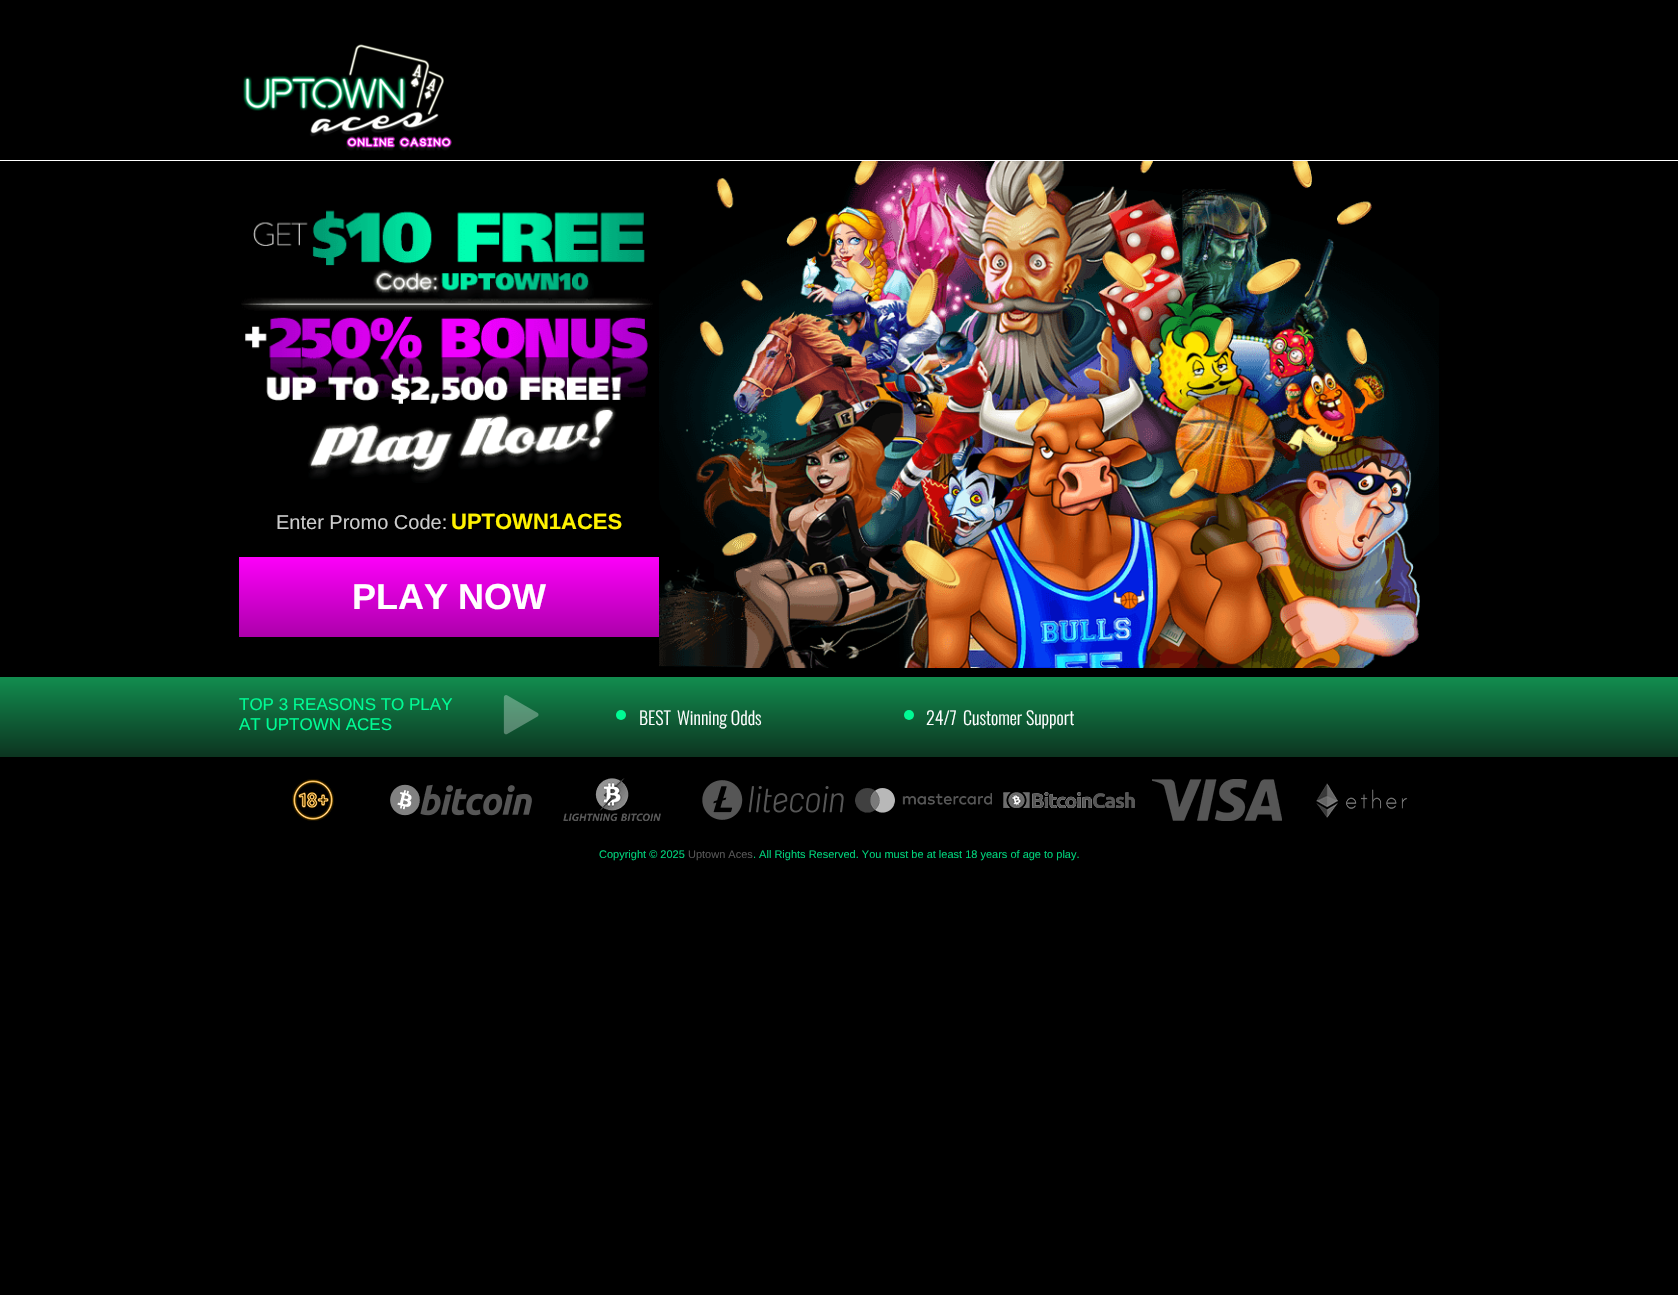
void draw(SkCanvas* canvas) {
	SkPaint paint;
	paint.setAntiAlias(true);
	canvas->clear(0xff000000);
	paint.setColor(0xffffffff);
	canvas->drawRect(SkRect::MakeXYWH(0, 160, 1678, 1), paint);
	canvas->drawImageRect(SkImages::DeferredFromEncodedData(SkData::MakeFromFileName("img1.png")), SkRect::MakeXYWH(243, 44, 209, 107), SkSamplingOptions());
	canvas->drawImageRect(SkImages::DeferredFromEncodedData(SkData::MakeFromFileName("img2.png")), SkRect::MakeXYWH(241, 210, 412, 273), SkSamplingOptions());
	SkFont f1(fontMgr->matchFamilyStyle("Liberation Sans", SkFontStyle::Normal()), 20);
	f1.setSubpixel(true);
	paint.setColor(0xffcccccc);
	canvas->drawString("Enter Promo Code:", 276, 529, f1, paint);
	SkFont f2(fontMgr->matchFamilyStyle("Liberation Sans", SkFontStyle::Bold()), 22);
	f2.setSubpixel(true);
	paint.setColor(0xfffff200);
	canvas->drawString("UPTOWN1ACES", 451, 529, f2, paint);
	{
		const SkColor colors[] = {0xfffc00f9, 0xffad00ab};
		const float stops[] = {0, 1};
		const SkPoint ends[] = {{449, 557}, {449, 637}};
		paint.setShader(SkGradientShader::MakeLinear(ends, colors, stops, 2, SkTileMode::kClamp));
		paint.setAlpha(255);
	}
	canvas->drawRect(SkRect::MakeXYWH(239, 557, 420, 80), paint);
	SkFont f3(fontMgr->matchFamilyStyle("Liberation Sans", SkFontStyle::Bold()), 36);
	f3.setSubpixel(true);
	paint.setShader(nullptr);
	paint.setColor(0xffffffff);
	canvas->drawString("PLAY NOW", 352, 609, f3, paint);
	canvas->drawImageRect(SkImages::DeferredFromEncodedData(SkData::MakeFromFileName("img3.png")), SkRect::MakeXYWH(659, 161, 780, 507), SkSamplingOptions());
	{
		const SkColor colors[] = {0xff128d4f, 0xff0c3420};
		const float stops[] = {0, 1};
		const SkPoint ends[] = {{839, 677}, {839, 757}};
		paint.setShader(SkGradientShader::MakeLinear(ends, colors, stops, 2, SkTileMode::kClamp));
		paint.setAlpha(255);
	}
	canvas->drawRect(SkRect::MakeXYWH(0, 677, 1678, 80), paint);
	canvas->drawImageRect(SkImages::DeferredFromEncodedData(SkData::MakeFromFileName("img4.png")), SkRect::MakeXYWH(503, 695, 36, 40), SkSamplingOptions());
	SkFont f4(fontMgr->matchFamilyStyle("Liberation Sans", SkFontStyle::Normal()), 17);
	f4.setSubpixel(true);
	paint.setShader(nullptr);
	paint.setColor(0xff00fb94);
	canvas->drawString("TOP 3 REASONS TO PLAY", 239, 710, f4, paint);
	canvas->drawString("AT UPTOWN ACES", 239, 730, f4, paint);
	canvas->drawCircle(621, 715, 5, paint);
	SkFont f5(fontMgr->matchFamilyStyle("Oswald", SkFontStyle(300, SkFontStyle::kNormal_Width, SkFontStyle::kUpright_Slant)), 18);
	f5.setSubpixel(true);
	paint.setColor(0xffffffff);
	canvas->drawString("BEST", 639, 725, f5, paint);
	canvas->drawString("Winning Odds", 677, 725, f5, paint);
	paint.setColor(0xff00fb94);
	canvas->drawCircle(909, 715, 5, paint);
	paint.setColor(0xffffffff);
	canvas->drawString("24/7", 926, 725, f5, paint);
	canvas->drawString("Customer Support", 963, 725, f5, paint);
	canvas->drawImageRect(SkImages::DeferredFromEncodedData(SkData::MakeFromFileName("img5.png")), SkRect::MakeXYWH(292, 779, 42, 42), SkSamplingOptions());
	canvas->drawImageRect(SkImages::DeferredFromEncodedData(SkData::MakeFromFileName("img6.png")), SkRect::MakeXYWH(390, 784, 142, 32), SkSamplingOptions());
	canvas->drawImageRect(SkImages::DeferredFromEncodedData(SkData::MakeFromFileName("img7.png")), SkRect::MakeXYWH(563, 778, 98, 43), SkSamplingOptions());
	canvas->drawImageRect(SkImages::DeferredFromEncodedData(SkData::MakeFromFileName("img8.png")), SkRect::MakeXYWH(702, 780, 142, 40), SkSamplingOptions());
	canvas->drawImageRect(SkImages::DeferredFromEncodedData(SkData::MakeFromFileName("img9.png")), SkRect::MakeXYWH(855, 788, 137, 25), SkSamplingOptions());
	canvas->drawImageRect(SkImages::DeferredFromEncodedData(SkData::MakeFromFileName("img10.png")), SkRect::MakeXYWH(1003, 792, 132, 16), SkSamplingOptions());
	canvas->drawImageRect(SkImages::DeferredFromEncodedData(SkData::MakeFromFileName("img11.png")), SkRect::MakeXYWH(1152, 779, 130, 42), SkSamplingOptions());
	canvas->drawImageRect(SkImages::DeferredFromEncodedData(SkData::MakeFromFileName("img12.png")), SkRect::MakeXYWH(1316, 783, 92, 35), SkSamplingOptions());
	SkFont f6(fontMgr->matchFamilyStyle("Liberation Sans", SkFontStyle::Normal()), 11);
	f6.setSubpixel(true);
	paint.setColor(0xff00d17a);
	canvas->drawString("Copyright © 2025", 599, 858, f6, paint);
	paint.setColor(0xff565656);
	canvas->drawString("Uptown Aces", 688, 858, f6, paint);
	paint.setColor(0xff00d17a);
	canvas->drawString(". All Rights Reserved. You must be at least 18 years of age to play.", 753, 858, f6, paint);
}
